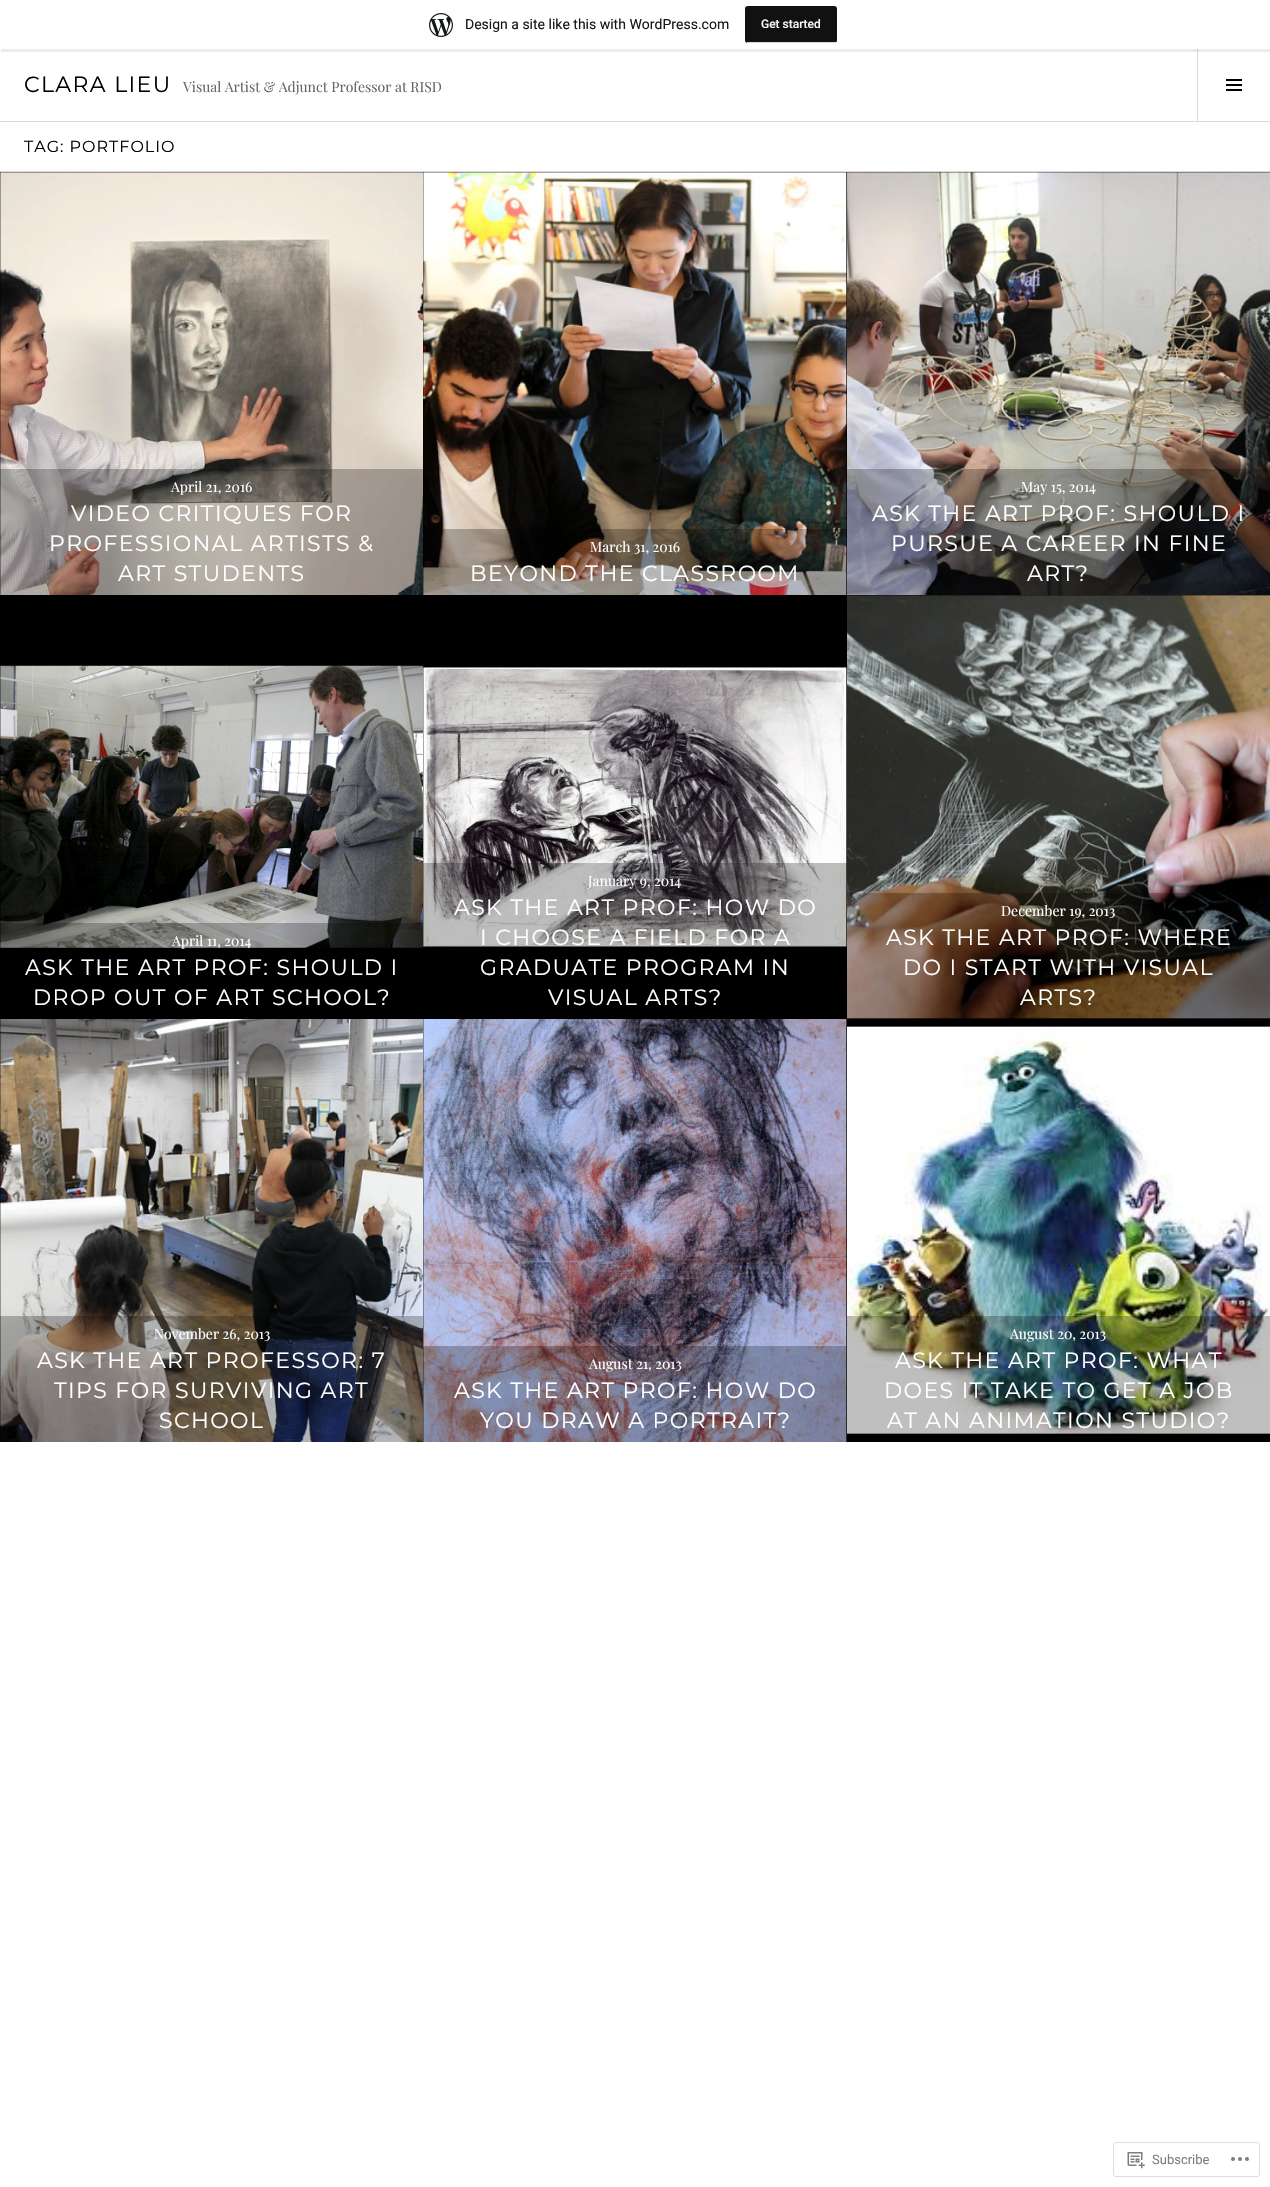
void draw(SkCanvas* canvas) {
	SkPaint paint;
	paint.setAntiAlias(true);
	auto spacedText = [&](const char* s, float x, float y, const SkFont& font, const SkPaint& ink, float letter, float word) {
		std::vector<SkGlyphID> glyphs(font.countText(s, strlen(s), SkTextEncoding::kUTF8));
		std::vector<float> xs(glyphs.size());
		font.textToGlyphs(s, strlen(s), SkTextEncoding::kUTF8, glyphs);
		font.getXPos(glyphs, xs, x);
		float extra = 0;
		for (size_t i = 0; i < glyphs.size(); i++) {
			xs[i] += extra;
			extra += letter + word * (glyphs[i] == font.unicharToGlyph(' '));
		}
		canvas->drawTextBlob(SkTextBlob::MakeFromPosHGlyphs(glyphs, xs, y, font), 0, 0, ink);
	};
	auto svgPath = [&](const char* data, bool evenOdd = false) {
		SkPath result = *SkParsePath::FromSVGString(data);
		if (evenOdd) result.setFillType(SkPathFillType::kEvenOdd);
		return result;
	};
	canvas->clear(0xffffffff);
	paint.setColor(0xffd9d9d9);
	canvas->drawRect(SkRect::MakeXYWH(1197, 49, 1, 72), paint);
	paint.setColor(0x14000000);
	canvas->drawPath(svgPath("M1 49V52H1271V3H1270V49Z"), paint);
	canvas->drawImageRect(SkImages::DeferredFromEncodedData(SkData::MakeFromFileName("img1.png")), SkRect::MakeXYWH(429, 13, 24, 24), SkSamplingOptions());
	SkFont f1(fontMgr->matchFamilyStyle("Roboto", SkFontStyle::Normal()), 14);
	f1.setSubpixel(true);
	paint.setColor(0xff171717);
	canvas->drawString("Design a site like this with WordPress.com", 465, 29, f1, paint);
	paint.setColor(0xff111111);
	canvas->drawRoundRect(SkRect::MakeXYWH(745, 6, 92, 37), 3, 3, paint);
	paint.setColor(0xffd9d9d9);
	canvas->drawRect(SkRect::MakeXYWH(747, 42, 89, 1), paint);
	SkFont f2(fontMgr->matchFamilyStyle("Roboto", SkFontStyle(500, SkFontStyle::kNormal_Width, SkFontStyle::kUpright_Slant)), 12);
	f2.setSubpixel(true);
	paint.setColor(0xfff6f7f7);
	canvas->drawString("Get started", 761, 28, f2, paint);
	paint.setColor(0xffd9d9d9);
	canvas->drawRect(SkRect::MakeXYWH(0, 121, 1270, 1), paint);
	SkFont f3(fontMgr->matchFamilyStyle("Montserrat", SkFontStyle::Normal()), 22);
	f3.setSubpixel(true);
	paint.setColor(0xff000000);
	spacedText("CLARA LIEU", 24, 92, f3, paint, 1.4, 0);
	SkFont f4(fontMgr->matchFamilyStyle("Playfair Display", SkFontStyle::Normal()), 14);
	f4.setSubpixel(true);
	paint.setColor(0xff666666);
	canvas->drawString("Visual Artist & Adjunct Professor at RISD", 183, 92, f4, paint);
	canvas->drawImageRect(SkImages::DeferredFromEncodedData(SkData::MakeFromFileName("img2.png")), SkRect::MakeXYWH(1226, 79, 16, 12), SkSamplingOptions());
	paint.setColor(0xffd9d9d9);
	canvas->drawRect(SkRect::MakeXYWH(0, 171, 1270, 1), paint);
	SkFont f5(fontMgr->matchFamilyStyle("Montserrat", SkFontStyle::Normal()), 16);
	f5.setSubpixel(true);
	paint.setColor(0xff000000);
	spacedText("TAG: PORTFOLIO", 24, 152, f5, paint, 1, 0);
	canvas->drawRect(SkRect::MakeXYWH(0, 172, 847, 423), paint);
	canvas->drawImageRect(SkImages::DeferredFromEncodedData(SkData::MakeFromFileName("img3.png")), SkRect::MakeXYWH(0, 172, 423, 423), SkSamplingOptions());
	paint.setColor(0x40000000);
	canvas->drawRect(SkRect::MakeXYWH(0, 469, 423, 126), paint);
	paint.setColor(0xffffffff);
	canvas->drawString("April 21, 2016", 171, 492, f4, paint);
	spacedText("VIDEO CRITIQUES FOR", 71, 521, f3, paint, 1.4, 0);
	spacedText("PROFESSIONAL ARTISTS &", 49, 551, f3, paint, 1.4, 0);
	spacedText("ART STUDENTS", 118, 581, f3, paint, 1.4, 0);
	canvas->drawImageRect(SkImages::DeferredFromEncodedData(SkData::MakeFromFileName("img4.png")), SkRect::MakeXYWH(423, 172, 424, 423), SkSamplingOptions());
	paint.setColor(0x40000000);
	canvas->drawRect(SkRect::MakeXYWH(423, 529, 424, 66), paint);
	paint.setColor(0xffffffff);
	canvas->drawString("March 31, 2016", 590, 552, f4, paint);
	spacedText("BEYOND THE CLASSROOM", 470, 581, f3, paint, 1.4, 0);
	paint.setColor(0xff000000);
	canvas->drawRect(SkRect::MakeXYWH(847, 172, 423, 1), paint);
	canvas->drawImageRect(SkImages::DeferredFromEncodedData(SkData::MakeFromFileName("img5.png")), SkRect::MakeXYWH(847, 172, 423, 423), SkSamplingOptions());
	paint.setColor(0x40000000);
	canvas->drawRect(SkRect::MakeXYWH(847, 469, 423, 126), paint);
	paint.setColor(0xffffffff);
	canvas->drawString("May 15, 2014", 1021, 492, f4, paint);
	spacedText("ASK THE ART PROF: SHOULD I", 872, 521, f3, paint, 1.4, 0);
	spacedText("PURSUE A CAREER IN FINE", 891, 551, f3, paint, 1.4, 0);
	spacedText("ART?", 1027, 581, f3, paint, 1.4, 0);
	paint.setColor(0xff000000);
	canvas->drawRect(SkRect::MakeXYWH(0, 595, 1270, 424), paint);
	canvas->drawImageRect(SkImages::DeferredFromEncodedData(SkData::MakeFromFileName("img6.png")), SkRect::MakeXYWH(0, 665, 423, 283), SkSamplingOptions());
	paint.setColor(0x40000000);
	canvas->drawRect(SkRect::MakeXYWH(0, 923, 423, 25), paint);
	paint.setColor(0xffffffff);
	canvas->drawString("April 11, 2014", 172, 946, f4, paint);
	spacedText("ASK THE ART PROF: SHOULD I", 25, 975, f3, paint, 1.4, 0);
	spacedText("DROP OUT OF ART SCHOOL?", 33, 1005, f3, paint, 1.4, 0);
	canvas->drawImageRect(SkImages::DeferredFromEncodedData(SkData::MakeFromFileName("img7.png")), SkRect::MakeXYWH(423, 667, 424, 280), SkSamplingOptions());
	paint.setColor(0x40000000);
	canvas->drawRect(SkRect::MakeXYWH(423, 863, 424, 84), paint);
	paint.setColor(0xffffffff);
	canvas->drawString("January 9, 2014", 588, 886, f4, paint);
	spacedText("ASK THE ART PROF: HOW DO", 454, 915, f3, paint, 1.4, 0);
	spacedText("I CHOOSE A FIELD FOR A", 480, 945, f3, paint, 1.4, 0);
	spacedText("GRADUATE PROGRAM IN", 480, 975, f3, paint, 1.4, 0);
	spacedText("VISUAL ARTS?", 548, 1005, f3, paint, 1.4, 0);
	canvas->drawImageRect(SkImages::DeferredFromEncodedData(SkData::MakeFromFileName("img8.png")), SkRect::MakeXYWH(847, 595, 423, 424), SkSamplingOptions());
	paint.setColor(0x40000000);
	canvas->drawRect(SkRect::MakeXYWH(847, 893, 423, 126), paint);
	paint.setColor(0xffffffff);
	canvas->drawString("December 19, 2013", 1001, 916, f4, paint);
	spacedText("ASK THE ART PROF: WHERE", 886, 945, f3, paint, 1.4, 0);
	spacedText("DO I START WITH VISUAL", 903, 975, f3, paint, 1.4, 0);
	spacedText("ARTS?", 1020, 1005, f3, paint, 1.4, 0);
	paint.setColor(0xff000000);
	canvas->drawRect(SkRect::MakeXYWH(0, 1019, 1, 423), paint);
	canvas->drawImageRect(SkImages::DeferredFromEncodedData(SkData::MakeFromFileName("img9.png")), SkRect::MakeXYWH(0, 1019, 423, 423), SkSamplingOptions());
	paint.setColor(0x40000000);
	canvas->drawRect(SkRect::MakeXYWH(0, 1316, 423, 126), paint);
	paint.setColor(0xffffffff);
	canvas->drawString("November 26, 2013", 154, 1339, f4, paint);
	spacedText("ASK THE ART PROFESSOR: 7", 37, 1368, f3, paint, 1.4, 0);
	spacedText("TIPS FOR SURVIVING ART", 54, 1398, f3, paint, 1.4, 0);
	spacedText("SCHOOL", 159, 1428, f3, paint, 1.4, 0);
	paint.setColor(0xff000000);
	canvas->drawRect(SkRect::MakeXYWH(423, 1019, 847, 423), paint);
	canvas->drawImageRect(SkImages::DeferredFromEncodedData(SkData::MakeFromFileName("img10.png")), SkRect::MakeXYWH(423, 1019, 424, 423), SkSamplingOptions());
	paint.setColor(0x40000000);
	canvas->drawRect(SkRect::MakeXYWH(423, 1346, 424, 96), paint);
	paint.setColor(0xffffffff);
	canvas->drawString("August 21, 2013", 589, 1369, f4, paint);
	spacedText("ASK THE ART PROF: HOW DO", 454, 1398, f3, paint, 1.4, 0);
	spacedText("YOU DRAW A PORTRAIT?", 480, 1428, f3, paint, 1.4, 0);
	canvas->drawImageRect(SkImages::DeferredFromEncodedData(SkData::MakeFromFileName("img11.png")), SkRect::MakeXYWH(847, 1026, 423, 408), SkSamplingOptions());
	paint.setColor(0x40000000);
	canvas->drawRect(SkRect::MakeXYWH(847, 1316, 423, 118), paint);
	paint.setColor(0xffffffff);
	canvas->drawString("August 20, 2013", 1010, 1339, f4, paint);
	spacedText("ASK THE ART PROF: WHAT", 895, 1368, f3, paint, 1.4, 0);
	spacedText("DOES IT TAKE TO GET A JOB", 884, 1398, f3, paint, 1.4, 0);
	spacedText("AT AN ANIMATION STUDIO?", 887, 1428, f3, paint, 1.4, 0);
	paint.setStroke(true);
	paint.setStrokeWidth(1);
	paint.setColor(0xffdddddf);
	canvas->drawRoundRect(SkRect::MakeXYWH(1113.5, 2142.5, 146, 34), 2.5, 2.5, paint);
	canvas->drawImageRect(SkImages::DeferredFromEncodedData(SkData::MakeFromFileName("img12.png")), SkRect::MakeXYWH(1127, 2152, 18, 17), SkSamplingOptions());
	SkFont f6(fontMgr->matchFamilyStyle("Roboto", SkFontStyle::Normal()), 13);
	f6.setSubpixel(true);
	paint.setStroke(false);
	paint.setColor(0xff7b7f85);
	canvas->drawString("Subscribe", 1152, 2164, f6, paint);
	canvas->drawImageRect(SkImages::DeferredFromEncodedData(SkData::MakeFromFileName("img13.png")), SkRect::MakeXYWH(1231, 2157, 18, 4), SkSamplingOptions());
}
